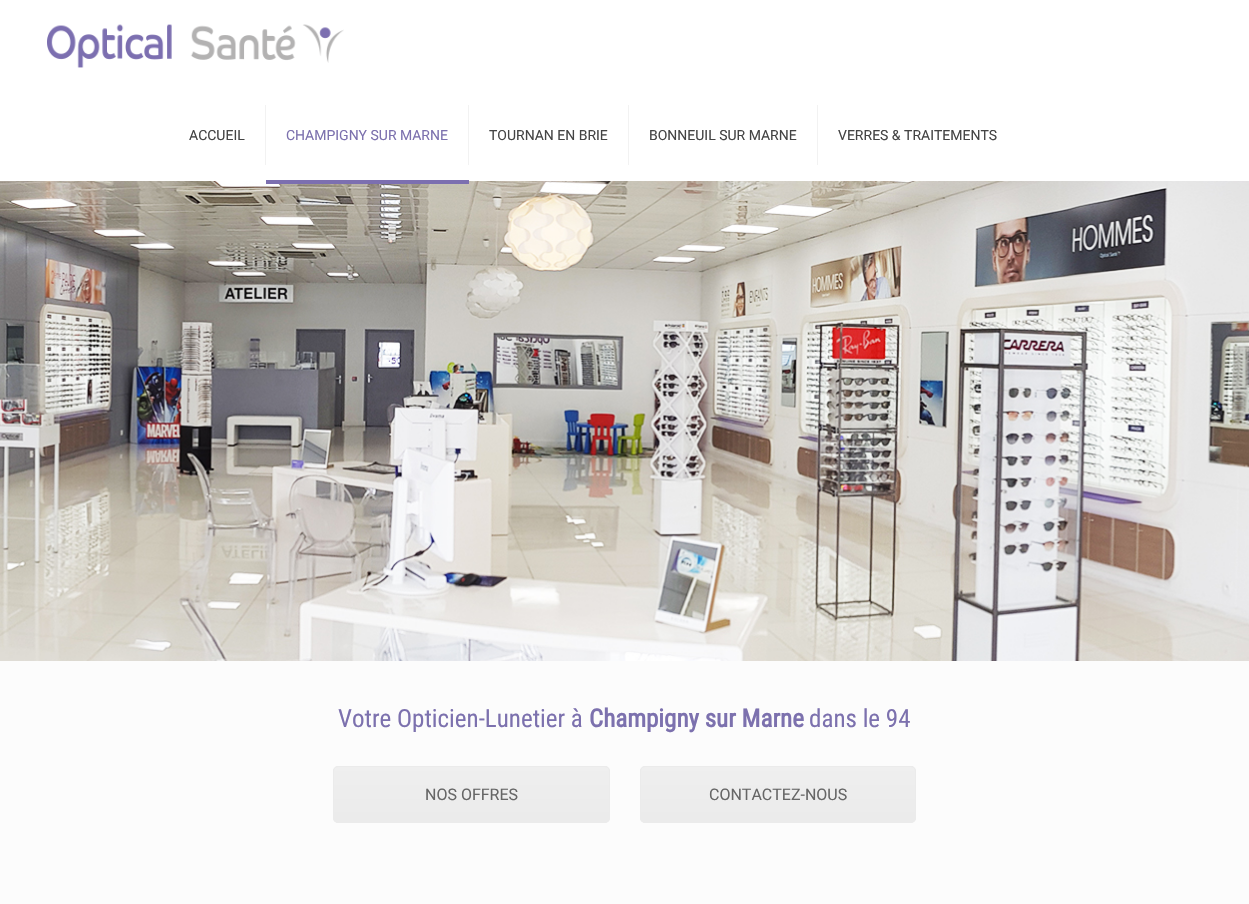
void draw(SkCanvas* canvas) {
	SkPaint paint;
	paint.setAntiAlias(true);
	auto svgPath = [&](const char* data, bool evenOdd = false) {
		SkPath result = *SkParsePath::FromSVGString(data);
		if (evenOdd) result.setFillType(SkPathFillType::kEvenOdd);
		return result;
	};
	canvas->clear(0xfffcfcfc);
	paint.setColor(0xffffffff);
	canvas->drawRect(SkRect::MakeXYWH(0, 0, 1249, 181), paint);
	canvas->drawImageRect(SkImages::DeferredFromEncodedData(SkData::MakeFromFileName("img1.png")), SkRect::MakeXYWH(47, 24, 297, 44), SkSamplingOptions());
	paint.setColor(0xfff2f2f2);
	canvas->drawRect(SkRect::MakeXYWH(265, 105, 1, 60), paint);
	SkFont f1(fontMgr->matchFamilyStyle("Roboto", SkFontStyle::Normal()), 14);
	f1.setSubpixel(true);
	paint.setColor(0xff444444);
	canvas->drawString("ACCUEIL", 189, 140, f1, paint);
	paint.setColor(0xfff2f2f2);
	canvas->drawRect(SkRect::MakeXYWH(468, 105, 1, 60), paint);
	paint.setColor(0xff7c71ae);
	canvas->drawString("CHAMPIGNY SUR MARNE", 286, 140, f1, paint);
	canvas->drawImageRect(SkImages::DeferredFromEncodedData(SkData::MakeFromFileName("img2.png")), SkRect::MakeXYWH(0, 181, 1249, 480), SkSamplingOptions());
	paint.setColor(0xff7c6fb0);
	canvas->drawRect(SkRect::MakeXYWH(266, 180, 203, 4), paint);
	paint.setColor(0xfff2f2f2);
	canvas->drawRect(SkRect::MakeXYWH(628, 105, 1, 60), paint);
	paint.setColor(0xff444444);
	canvas->drawString("TOURNAN EN BRIE", 489, 140, f1, paint);
	paint.setColor(0xfff2f2f2);
	canvas->drawRect(SkRect::MakeXYWH(817, 105, 1, 60), paint);
	paint.setColor(0xff444444);
	canvas->drawString("BONNEUIL SUR MARNE", 649, 140, f1, paint);
	canvas->drawString("VERRES & TRAITEMENTS", 838, 140, f1, paint);
	SkFont f2(fontMgr->matchFamilyStyle("Roboto Condensed", SkFontStyle::Normal()), 25);
	f2.setSubpixel(true);
	paint.setColor(0xff7c71ae);
	canvas->drawString("Votre Opticien-Lunetier à", 338, 727, f2, paint);
	SkFont f3(fontMgr->matchFamilyStyle("Roboto Condensed", SkFontStyle::Bold()), 25);
	f3.setSubpixel(true);
	canvas->drawString("Champigny sur Marne", 589, 727, f3, paint);
	canvas->drawString("dans le 94", 809, 727, f2, paint);
	paint.setColor(0xffebebeb);
	canvas->drawRoundRect(SkRect::MakeXYWH(333, 766, 277, 57), 5, 5, paint);
	canvas->save();
	canvas->clipPath(svgPath("M338 766H605C608 766 610 768 610 771V818C610 821 608 823 605 823H338C335 823 333 821 333 818V771C333 768 335 766 338 766Z"), true);
	{
		const SkColor colors[] = {0x33ffffff, 0x03ffffff};
		const float stops[] = {0, 1};
		const SkPoint ends[] = {{472, 767}, {472, 822}};
		paint.setShader(SkGradientShader::MakeLinear(ends, colors, stops, 2, SkTileMode::kClamp));
		paint.setAlpha(255);
	}
	canvas->drawRect(SkRect::MakeXYWH(333, 767, 277, 52), paint);
	canvas->restore();
	paint.setStroke(true);
	paint.setStrokeWidth(1);
	paint.setShader(nullptr);
	paint.setColor(0xffebebeb);
	canvas->drawRoundRect(SkRect::MakeXYWH(333.5, 766.5, 276, 56), 4.5, 4.5, paint);
	SkFont f4(fontMgr->matchFamilyStyle("Roboto", SkFontStyle::Normal()), 16);
	f4.setSubpixel(true);
	paint.setStroke(false);
	paint.setColor(0xff666666);
	canvas->drawString("NOS OFFRES", 425, 800, f4, paint);
	paint.setColor(0xffebebeb);
	canvas->drawRoundRect(SkRect::MakeXYWH(640, 766, 276, 57), 5, 5, paint);
	canvas->save();
	canvas->clipPath(svgPath("M645 766H911C914 766 916 768 916 771V818C916 821 914 823 911 823H645C642 823 640 821 640 818V771C640 768 642 766 645 766Z"), true);
	{
		const SkColor colors[] = {0x33ffffff, 0x03ffffff};
		const float stops[] = {0, 1};
		const SkPoint ends[] = {{778, 767}, {778, 822}};
		paint.setShader(SkGradientShader::MakeLinear(ends, colors, stops, 2, SkTileMode::kClamp));
		paint.setAlpha(255);
	}
	canvas->drawRect(SkRect::MakeXYWH(640, 767, 276, 52), paint);
	canvas->restore();
	paint.setStroke(true);
	paint.setShader(nullptr);
	paint.setColor(0xffebebeb);
	canvas->drawRoundRect(SkRect::MakeXYWH(640.5, 766.5, 275, 56), 4.5, 4.5, paint);
	paint.setStroke(false);
	paint.setColor(0xff666666);
	canvas->drawString("CONTACTEZ-NOUS", 709, 800, f4, paint);
}
